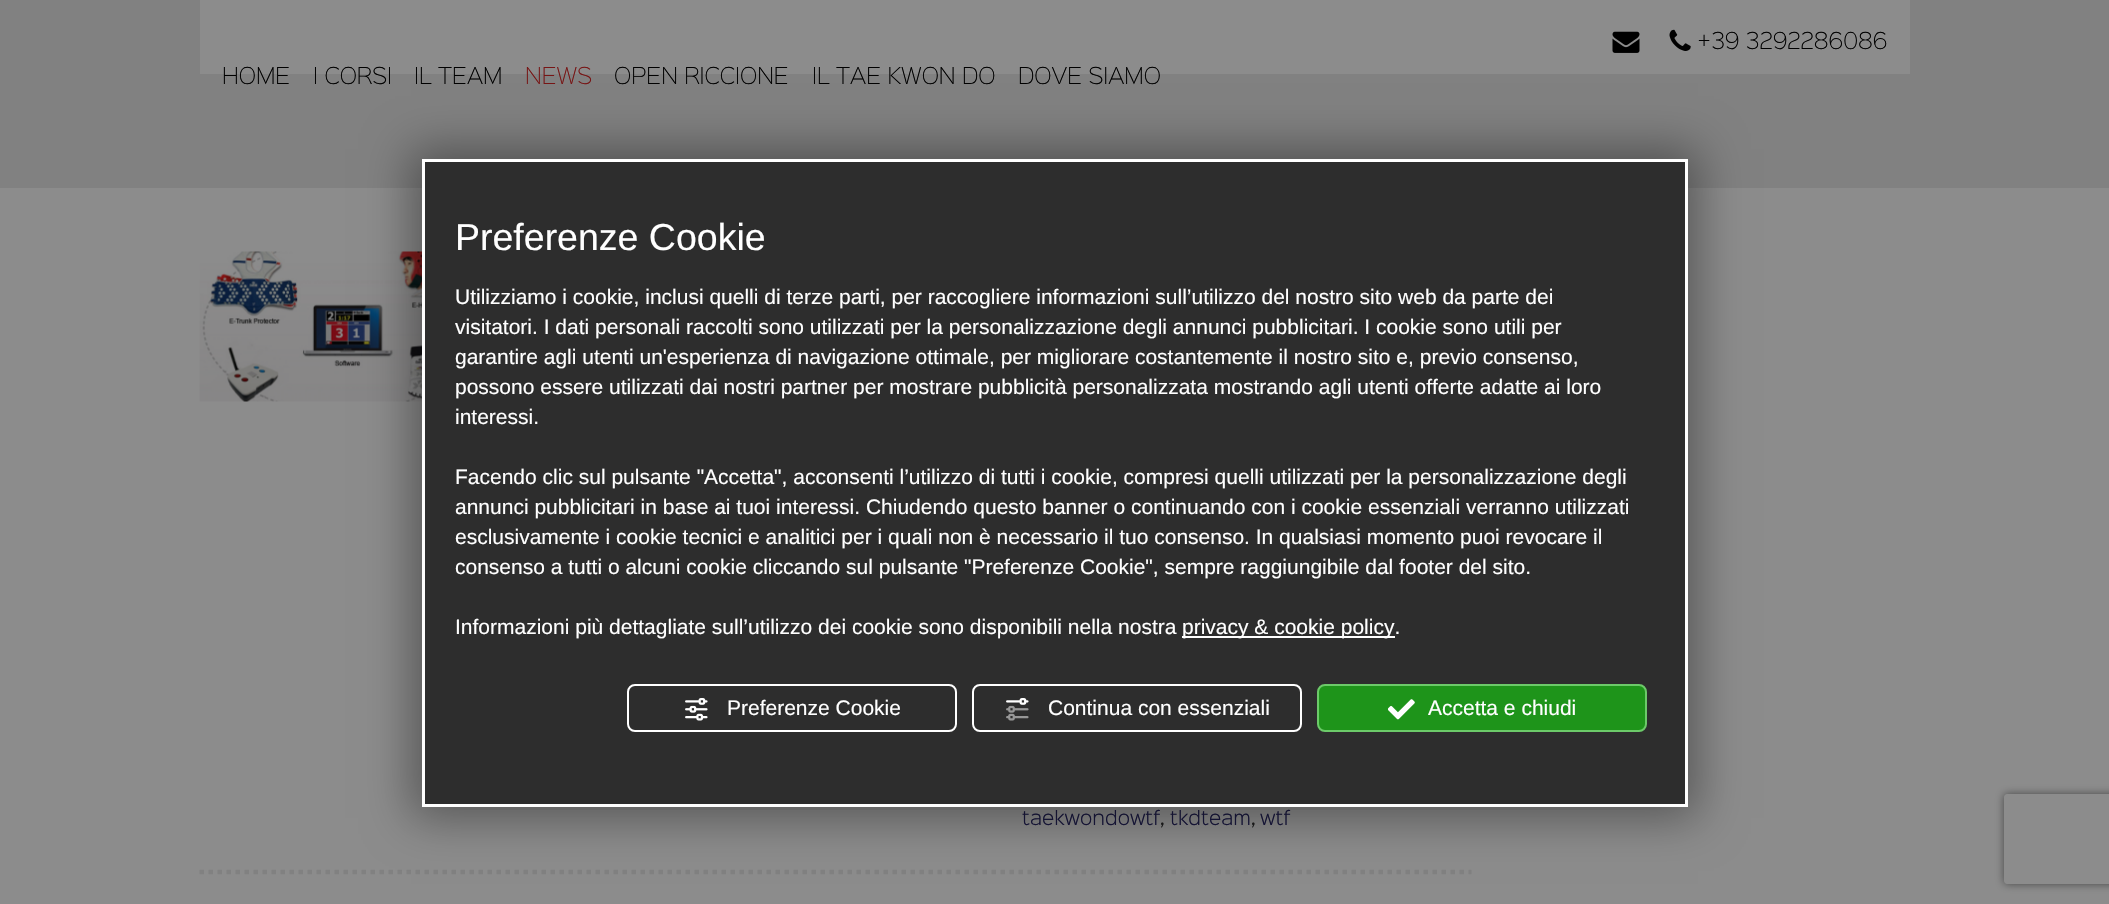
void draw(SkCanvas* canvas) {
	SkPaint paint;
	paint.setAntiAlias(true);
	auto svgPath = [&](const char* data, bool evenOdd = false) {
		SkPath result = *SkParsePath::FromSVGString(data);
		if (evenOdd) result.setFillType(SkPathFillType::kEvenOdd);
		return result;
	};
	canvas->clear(0xff8c8c8c);
	paint.setColor(0xff818181);
	canvas->drawRect(SkRect::MakeXYWH(0, 0, 2109, 188), paint);
	paint.setColor(0xff8c8c8c);
	canvas->drawRect(SkRect::MakeXYWH(200, 0, 1710, 74), paint);
	canvas->drawImageRect(SkImages::DeferredFromEncodedData(SkData::MakeFromFileName("img1.png")), SkRect::MakeXYWH(1612, 31, 28, 22), SkSamplingOptions());
	canvas->drawImageRect(SkImages::DeferredFromEncodedData(SkData::MakeFromFileName("img2.png")), SkRect::MakeXYWH(1669, 29, 22, 22), SkSamplingOptions());
	SkFont f1(fontMgr->matchFamilyStyle("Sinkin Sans", SkFontStyle(200, SkFontStyle::kNormal_Width, SkFontStyle::kUpright_Slant)), 21);
	f1.setSubpixel(true);
	paint.setColor(0xff000000);
	canvas->drawString("+39 3292286086", 1697, 49, f1, paint);
	canvas->drawString("HOME", 222, 84, f1, paint);
	canvas->drawString("I CORSI", 313, 84, f1, paint);
	canvas->drawString("IL TEAM", 414, 84, f1, paint);
	paint.setColor(0xff771515);
	canvas->drawString("NEWS", 525, 84, f1, paint);
	paint.setColor(0xff000000);
	canvas->drawString("OPEN RICCIONE", 614, 84, f1, paint);
	canvas->drawString("IL TAE KWON DO", 812, 84, f1, paint);
	canvas->drawString("DOVE SIAMO", 1018, 84, f1, paint);
	paint.setStroke(true);
	paint.setStrokeWidth(4.5);
	paint.setColor(0xff818181);
	paint.setPathEffect(SkDashPathEffect::Make({{4.5f, 4.5f}}, 0));
	canvas->drawPath(svgPath("M199.5 872H1471.5"), paint);
	paint.setPathEffect(nullptr);
	canvas->drawImageRect(SkImages::DeferredFromEncodedData(SkData::MakeFromFileName("img3.png")), SkRect::MakeXYWH(199, 251, 223, 151), SkSamplingOptions());
	SkFont f2(fontMgr->matchFamilyStyle("Sinkin Sans", SkFontStyle(300, SkFontStyle::kNormal_Width, SkFontStyle::kUpright_Slant)), 18);
	f2.setSubpixel(true);
	paint.setStroke(false);
	paint.setColor(0xff19183e);
	canvas->drawString("taekwondowtf", 1022, 825, f2, paint);
	paint.setColor(0xff1c1c1c);
	canvas->drawString(",", 1160, 825, f2, paint);
	paint.setColor(0xff19183e);
	canvas->drawString("tkdteam", 1170, 825, f2, paint);
	paint.setColor(0xff1c1c1c);
	canvas->drawString(",", 1251, 825, f2, paint);
	paint.setColor(0xff19183e);
	canvas->drawString("wtf", 1260, 825, f2, paint);
	paint.setColor(0x61000000);
	paint.setMaskFilter(SkMaskFilter::MakeBlur(kNormal_SkBlurStyle, 22));
	canvas->drawRect(SkRect::MakeXYWH(411, 149, 1287, 669), paint);
	paint.setMaskFilter(nullptr);
	paint.setColor(0xff2d2d2d);
	canvas->drawRect(SkRect::MakeXYWH(423.5, 160.5, 1263, 645), paint);
	paint.setStroke(true);
	paint.setStrokeWidth(3);
	paint.setColor(0xffffffff);
	canvas->drawRect(SkRect::MakeXYWH(423.5, 160.5, 1263, 645), paint);
	SkFont f3(fontMgr->matchFamilyStyle("Liberation Sans", SkFontStyle::Normal()), 37.5);
	f3.setSubpixel(true);
	paint.setStroke(false);
	canvas->drawString("Preferenze Cookie", 455, 250, f3, paint);
	SkFont f4(fontMgr->matchFamilyStyle("Liberation Sans", SkFontStyle::Normal()), 21);
	f4.setSubpixel(true);
	canvas->drawString("Utilizziamo i cookie, inclusi quelli di terze parti, per raccogliere informazioni sull’utilizzo del nostro sito web da parte dei", 455, 304, f4, paint);
	canvas->drawString("visitatori. I dati personali raccolti sono utilizzati per la personalizzazione degli annunci pubblicitari. I cookie sono utili per", 455, 334, f4, paint);
	canvas->drawString("garantire agli utenti un'esperienza di navigazione ottimale, per migliorare costantemente il nostro sito e, previo consenso,", 455, 364, f4, paint);
	canvas->drawString("possono essere utilizzati dai nostri partner per mostrare pubblicità personalizzata mostrando agli utenti offerte adatte ai loro", 455, 394, f4, paint);
	canvas->drawString("interessi.", 455, 424, f4, paint);
	canvas->drawString("Facendo clic sul pulsante \"Accetta\", acconsenti l’utilizzo di tutti i cookie, compresi quelli utilizzati per la personalizzazione degli", 455, 484, f4, paint);
	canvas->drawString("annunci pubblicitari in base ai tuoi interessi. Chiudendo questo banner o continuando con i cookie essenziali verranno utilizzati", 455, 514, f4, paint);
	canvas->drawString("esclusivamente i cookie tecnici e analitici per i quali non è necessario il tuo consenso. In qualsiasi momento puoi revocare il", 455, 544, f4, paint);
	canvas->drawString("consenso a tutti o alcuni cookie cliccando sul pulsante \"Preferenze Cookie\", sempre raggiungibile dal footer del sito.", 455, 574, f4, paint);
	canvas->drawString("Informazioni più dettagliate sull’utilizzo dei cookie sono disponibili nella nostra", 455, 634, f4, paint);
	canvas->drawRect(SkRect::MakeXYWH(1182, 636, 213, 2), paint);
	canvas->drawString("privacy & cookie policy.", 1182, 634, f4, paint);
	paint.setStroke(true);
	paint.setStrokeWidth(2);
	canvas->drawRoundRect(SkRect::MakeXYWH(628, 685, 328, 46), 7, 7, paint);
	canvas->drawImageRect(SkImages::DeferredFromEncodedData(SkData::MakeFromFileName("img4.png")), SkRect::MakeXYWH(685, 698, 23, 23), SkSamplingOptions());
	paint.setStroke(false);
	canvas->drawString("Preferenze Cookie", 727, 715, f4, paint);
	paint.setStroke(true);
	canvas->drawRoundRect(SkRect::MakeXYWH(973, 685, 328, 46), 7, 7, paint);
	canvas->drawImageRect(SkImages::DeferredFromEncodedData(SkData::MakeFromFileName("img5.png")), SkRect::MakeXYWH(1006, 698, 23, 23), SkSamplingOptions());
	paint.setStroke(false);
	canvas->drawString("Continua con essenziali", 1048, 715, f4, paint);
	paint.setColor(0xff1e941a);
	canvas->drawRoundRect(SkRect::MakeXYWH(1318, 685, 328, 46), 7, 7, paint);
	paint.setStroke(true);
	paint.setColor(0xff6cca69);
	canvas->drawRoundRect(SkRect::MakeXYWH(1318, 685, 328, 46), 7, 7, paint);
	canvas->drawImageRect(SkImages::DeferredFromEncodedData(SkData::MakeFromFileName("img6.png")), SkRect::MakeXYWH(1388, 699, 27, 21), SkSamplingOptions());
	paint.setStroke(false);
	paint.setColor(0xffffffff);
	canvas->drawString("Accetta e chiudi", 1428, 715, f4, paint);
	canvas->save();
	canvas->clipPath(svgPath("M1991 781H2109V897H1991ZM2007 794H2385C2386.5 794 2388 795.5 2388 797V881C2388 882.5 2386.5 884 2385 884H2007C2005.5 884 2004 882.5 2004 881V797C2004 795.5 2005.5 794 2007 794Z", true), true);
	paint.setColor(0xff464646);
	paint.setMaskFilter(SkMaskFilter::MakeBlur(kNormal_SkBlurStyle, 4));
	canvas->drawRoundRect(SkRect::MakeXYWH(2004, 794, 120, 90), 3, 3, paint);
	paint.setMaskFilter(nullptr);
	canvas->restore();
}
